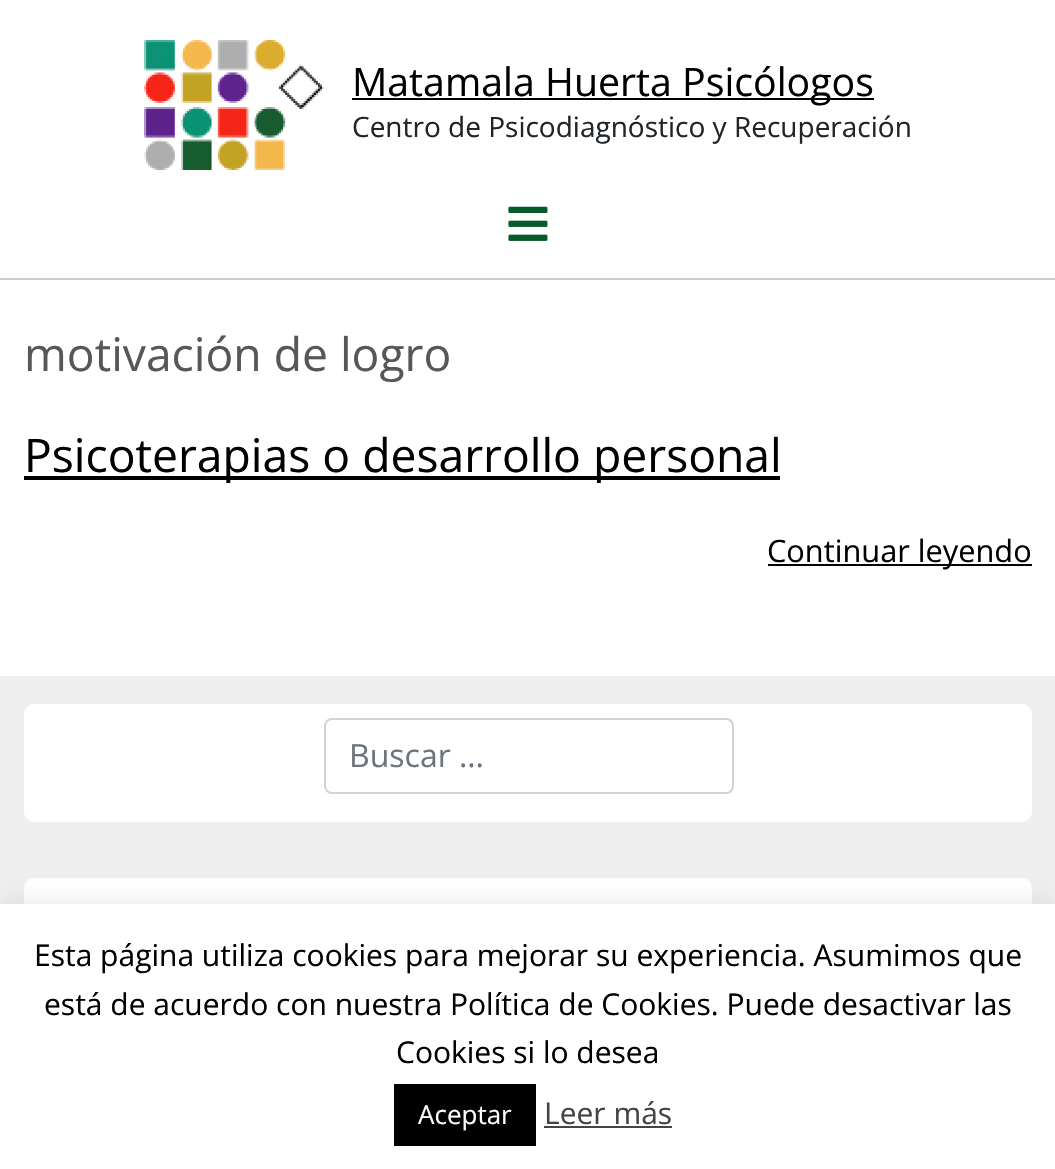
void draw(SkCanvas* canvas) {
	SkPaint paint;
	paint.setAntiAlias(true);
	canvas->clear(0xffffffff);
	paint.setColor(0xffcccccc);
	canvas->drawRect(SkRect::MakeXYWH(0, 278, 1055, 2), paint);
	canvas->drawImageRect(SkImages::DeferredFromEncodedData(SkData::MakeFromFileName("img1.png")), SkRect::MakeXYWH(144, 40, 180, 130), SkSamplingOptions());
	paint.setColor(0xff000000);
	canvas->drawRect(SkRect::MakeXYWH(352, 98, 522, 2), paint);
	SkFont f1(fontMgr->matchFamilyStyle("Open Sans", SkFontStyle::Normal()), 39.25);
	f1.setSubpixel(true);
	canvas->drawString("Matamala Huerta Psicólogos", 352, 96, f1, paint);
	SkFont f2(fontMgr->matchFamilyStyle("Open Sans", SkFontStyle::Normal()), 28);
	f2.setSubpixel(true);
	paint.setColor(0xff212529);
	canvas->drawString("Centro de Psicodiagnóstico y Recuperación", 352, 137, f2, paint);
	canvas->drawImageRect(SkImages::DeferredFromEncodedData(SkData::MakeFromFileName("img2.png")), SkRect::MakeXYWH(508, 206, 40, 35), SkSamplingOptions());
	SkFont f3(fontMgr->matchFamilyStyle("Open Sans", SkFontStyle::Normal()), 46.25);
	f3.setSubpixel(true);
	paint.setColor(0xff575757);
	canvas->drawString("motivación de logro", 24, 371, f3, paint);
	paint.setColor(0xff000000);
	canvas->drawRect(SkRect::MakeXYWH(24, 476, 756, 4), paint);
	canvas->drawString("Psicoterapias o desarrollo personal", 24, 472, f3, paint);
	canvas->drawRect(SkRect::MakeXYWH(768, 564, 264, 2), paint);
	SkFont f4(fontMgr->matchFamilyStyle("Open Sans", SkFontStyle::Normal()), 30.75);
	f4.setSubpixel(true);
	canvas->drawString("Continuar leyendo", 767, 562, f4, paint);
	paint.setColor(0xffeeeeee);
	canvas->drawRect(SkRect::MakeXYWH(0, 676, 1055, 228), paint);
	paint.setColor(0xffffffff);
	canvas->drawRoundRect(SkRect::MakeXYWH(24, 704, 1008, 118), 10, 10, paint);
	paint.setStroke(true);
	paint.setStrokeWidth(2);
	paint.setColor(0xffced4da);
	canvas->drawRoundRect(SkRect::MakeXYWH(325, 719, 408, 74), 7, 7, paint);
	SkFont f5(fontMgr->matchFamilyStyle("Open Sans", SkFontStyle::Normal()), 32);
	f5.setSubpixel(true);
	paint.setStroke(false);
	paint.setColor(0xff6c757d);
	canvas->drawString("Buscar …", 349, 767, f5, paint);
	paint.setColor(0xffffffff);
	canvas->drawRoundRect(SkRect::MakeXYWH(24, 878, 1008, 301), 10, 10, paint);
	paint.setColor(0x4dacabab);
	paint.setMaskFilter(SkMaskFilter::MakeBlur(kNormal_SkBlurStyle, 10));
	canvas->drawRect(SkRect::MakeXYWH(0, 902, 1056, 266), paint);
	paint.setMaskFilter(nullptr);
	paint.setColor(0xffffffff);
	canvas->drawRect(SkRect::MakeXYWH(0, 904, 1055, 265), paint);
	SkFont f6(fontMgr->matchFamilyStyle("Open Sans", SkFontStyle::Normal()), 30);
	f6.setSubpixel(true);
	paint.setColor(0xff000000);
	canvas->drawString("Esta página utiliza cookies para mejorar su experiencia. Asumimos que", 34, 966, f6, paint);
	canvas->drawString("está de acuerdo con nuestra Política de Cookies. Puede desactivar las", 44, 1015, f6, paint);
	canvas->drawString("Cookies si lo desea", 396, 1063, f6, paint);
	canvas->drawRect(SkRect::MakeXYWH(394, 1084, 142, 62), paint);
	SkFont f7(fontMgr->matchFamilyStyle("Open Sans", SkFontStyle::Normal()), 26);
	f7.setSubpixel(true);
	paint.setColor(0xffffffff);
	canvas->drawString("Aceptar", 418, 1124, f7, paint);
	paint.setColor(0xff444444);
	canvas->drawString("Leer más", 544, 1124, f6, paint);
	canvas->drawRect(SkRect::MakeXYWH(544, 1126, 128, 2), paint);
}
